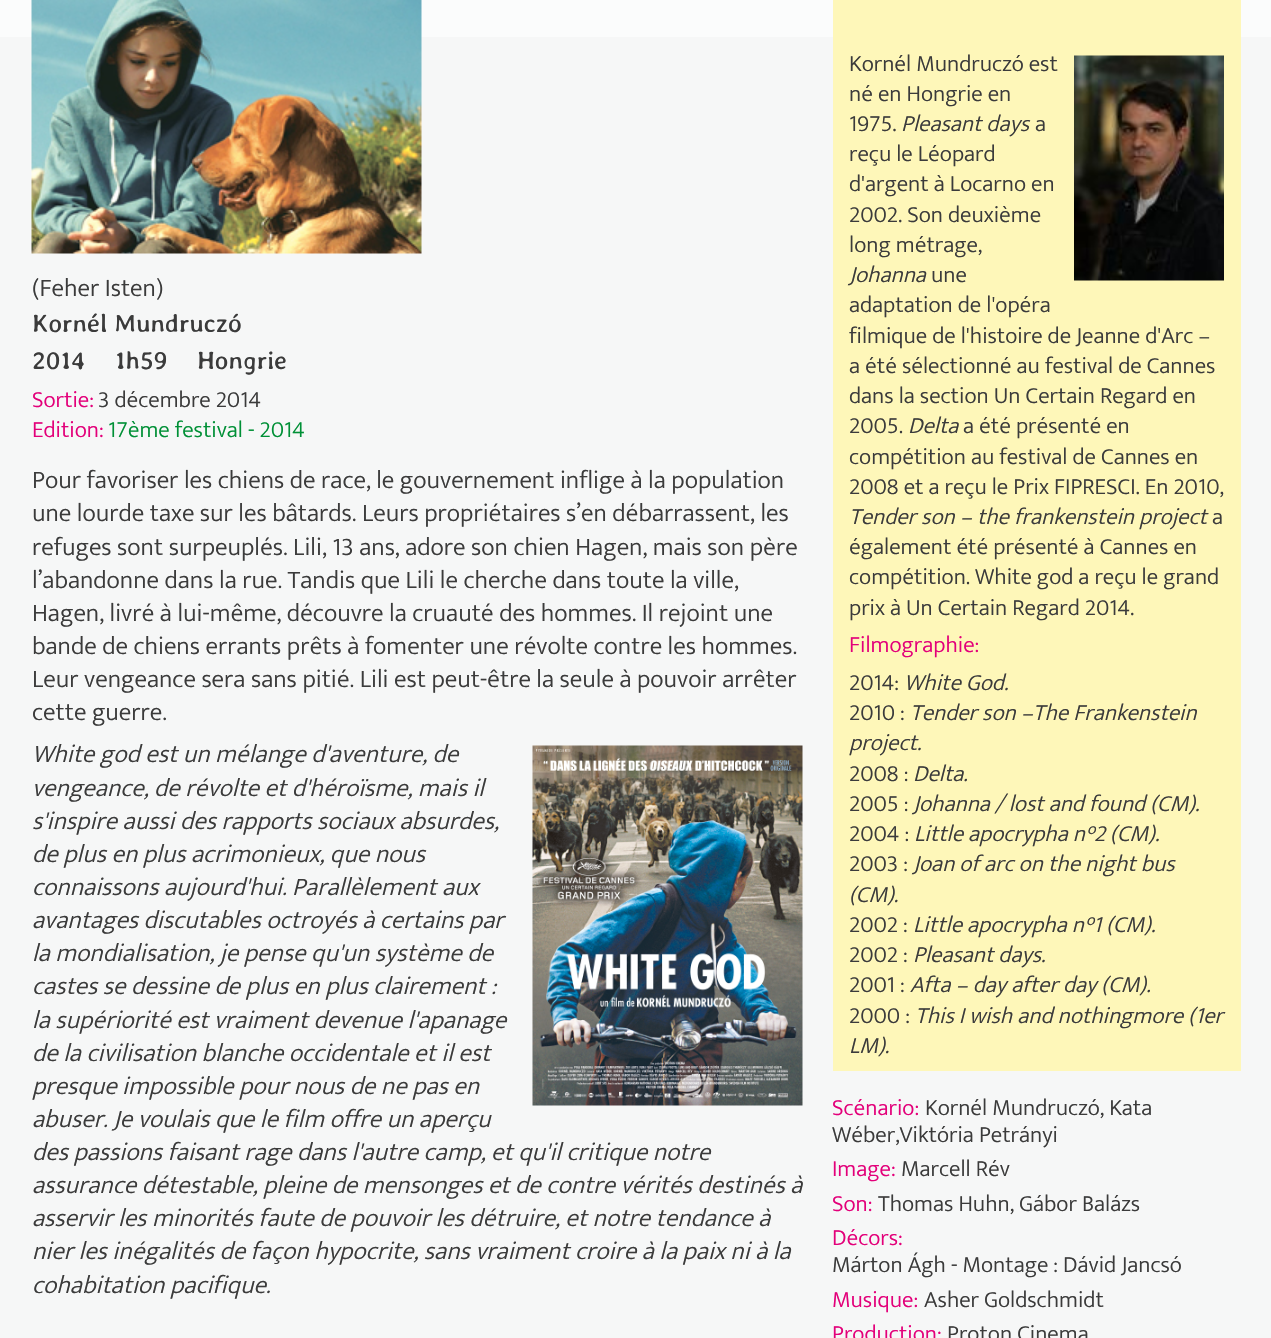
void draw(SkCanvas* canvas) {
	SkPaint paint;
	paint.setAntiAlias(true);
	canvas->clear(0xfff6f7f7);
	paint.setColor(0xfffbfcfc);
	canvas->drawRect(SkRect::MakeXYWH(0, 0, 1271, 37), paint);
	canvas->drawImageRect(SkImages::DeferredFromEncodedData(SkData::MakeFromFileName("img1.png")), SkRect::MakeXYWH(31, 0, 391, 254), SkSamplingOptions());
	SkFont f1(fontMgr->matchFamilyStyle("Ek Mukta", SkFontStyle(300, SkFontStyle::kNormal_Width, SkFontStyle::kUpright_Slant)), 25.5);
	f1.setSubpixel(true);
	paint.setColor(0xff3b3b3b);
	canvas->drawString("(Feher Isten)", 32, 296, f1, paint);
	SkFont f2(fontMgr->matchFamilyStyle("Averia Libre", SkFontStyle::Normal()), 25.5);
	f2.setSubpixel(true);
	canvas->drawString("Kornél Mundruczó", 32, 332, f2, paint);
	canvas->drawString("2014", 32, 369, f2, paint);
	canvas->drawString("1h59", 115, 369, f2, paint);
	canvas->drawString("Hongrie", 197, 369, f2, paint);
	SkFont f3(fontMgr->matchFamilyStyle("Ek Mukta", SkFontStyle(300, SkFontStyle::kNormal_Width, SkFontStyle::kUpright_Slant)), 23.25);
	f3.setSubpixel(true);
	paint.setColor(0xffe3007a);
	canvas->drawString("Sortie:", 32, 407, f3, paint);
	paint.setColor(0xff3b3b3b);
	canvas->drawString("3 décembre 2014", 98, 407, f3, paint);
	paint.setColor(0xffe3007a);
	canvas->drawString("Edition:", 32, 437, f3, paint);
	paint.setColor(0xff009036);
	canvas->drawString("17ème festival - 2014", 108, 437, f3, paint);
	paint.setColor(0xff3b3b3b);
	canvas->drawString("Pour favoriser les chiens de race, le gouvernement inflige à la population", 32, 488, f1, paint);
	canvas->drawString("une lourde taxe sur les bâtards. Leurs propriétaires s’en débarrassent, les", 32, 521, f1, paint);
	canvas->drawString("refuges sont surpeuplés. Lili, 13 ans, adore son chien Hagen, mais son père", 32, 555, f1, paint);
	canvas->drawString("l’abandonne dans la rue. Tandis que Lili le cherche dans toute la ville,", 32, 588, f1, paint);
	canvas->drawString("Hagen, livré à lui-même, découvre la cruauté des hommes. Il rejoint une", 32, 621, f1, paint);
	canvas->drawString("bande de chiens errants prêts à fomenter une révolte contre les hommes.", 32, 654, f1, paint);
	canvas->drawString("Leur vengeance sera sans pitié. Lili est peut-être la seule à pouvoir arrêter", 32, 687, f1, paint);
	canvas->drawString("cette guerre.", 32, 720, f1, paint);
	SkFont f4(fontMgr->matchFamilyStyle("Ek Mukta", SkFontStyle(300, SkFontStyle::kNormal_Width, SkFontStyle::kItalic_Slant)), 25.5);
	f4.setSubpixel(true);
	canvas->drawString("White god est un mélange d'aventure, de", 32, 762, f4, paint);
	canvas->drawString("vengeance, de révolte et d'héroïsme, mais il", 32, 796, f4, paint);
	canvas->drawString("s'inspire aussi des rapports sociaux absurdes,", 32, 829, f4, paint);
	canvas->drawString("de plus en plus acrimonieux, que nous", 32, 862, f4, paint);
	canvas->drawString("connaissons aujourd'hui. Parallèlement aux", 32, 895, f4, paint);
	canvas->drawString("avantages discutables octroyés à certains par", 32, 928, f4, paint);
	canvas->drawString("la mondialisation, je pense qu'un système de", 32, 961, f4, paint);
	canvas->drawString("castes se dessine de plus en plus clairement :", 32, 994, f4, paint);
	canvas->drawString("la supériorité est vraiment devenue l'apanage", 32, 1028, f4, paint);
	canvas->drawString("de la civilisation blanche occidentale et il est", 32, 1061, f4, paint);
	canvas->drawString("presque impossible pour nous de ne pas en", 32, 1094, f4, paint);
	canvas->drawString("abuser. Je voulais que le film offre un aperçu", 32, 1127, f4, paint);
	canvas->drawString("des passions faisant rage dans l'autre camp, et qu'il critique notre", 32, 1160, f4, paint);
	canvas->drawString("assurance détestable, pleine de mensonges et de contre vérités destinés à", 32, 1193, f4, paint);
	canvas->drawString("asservir les minorités faute de pouvoir les détruire, et notre tendance à", 32, 1226, f4, paint);
	canvas->drawString("nier les inégalités de façon hypocrite, sans vraiment croire à la paix ni à la", 32, 1259, f4, paint);
	canvas->drawString("cohabitation pacifique.", 32, 1293, f4, paint);
	canvas->drawImageRect(SkImages::DeferredFromEncodedData(SkData::MakeFromFileName("img2.png")), SkRect::MakeXYWH(532, 745, 271, 361), SkSamplingOptions());
	paint.setColor(0xfffef7b9);
	canvas->drawRect(SkRect::MakeXYWH(833, 0, 408, 1071), paint);
	paint.setColor(0xff3b3b3b);
	canvas->drawString("Kornél Mundruczó est", 849, 71, f3, paint);
	canvas->drawString("né en Hongrie en", 849, 101, f3, paint);
	canvas->drawString("1975.", 849, 131, f3, paint);
	SkFont f5(fontMgr->matchFamilyStyle("Ek Mukta", SkFontStyle(300, SkFontStyle::kNormal_Width, SkFontStyle::kItalic_Slant)), 23.25);
	f5.setSubpixel(true);
	canvas->drawString("Pleasant days", 901, 131, f5, paint);
	canvas->drawString("a", 1035, 131, f3, paint);
	canvas->drawString("reçu le Léopard", 849, 161, f3, paint);
	canvas->drawString("d'argent à Locarno en", 849, 191, f3, paint);
	canvas->drawString("2002. Son deuxième", 849, 222, f3, paint);
	canvas->drawString("long métrage,", 849, 252, f3, paint);
	canvas->drawString("Johanna", 849, 282, f5, paint);
	canvas->drawString("une", 931, 282, f3, paint);
	canvas->drawString("adaptation de l'opéra", 849, 312, f3, paint);
	canvas->drawString("filmique de l'histoire de Jeanne d'Arc –", 849, 343, f3, paint);
	canvas->drawString("a été sélectionné au festival de Cannes", 849, 373, f3, paint);
	canvas->drawString("dans la section Un Certain Regard en", 849, 403, f3, paint);
	canvas->drawString("2005.", 849, 433, f3, paint);
	canvas->drawString("Delta", 908, 433, f5, paint);
	canvas->drawString("a été présenté en", 963, 433, f3, paint);
	canvas->drawString("compétition au festival de Cannes en", 849, 464, f3, paint);
	canvas->drawString("2008 et a reçu le Prix FIPRESCI. En 2010,", 849, 494, f3, paint);
	canvas->drawString("Tender son – the frankenstein project", 849, 524, f5, paint);
	canvas->drawString("a", 1212, 524, f3, paint);
	canvas->drawString("également été présenté à Cannes en", 849, 554, f3, paint);
	canvas->drawString("compétition. White god a reçu le grand", 849, 584, f3, paint);
	canvas->drawString("prix à Un Certain Regard 2014.", 849, 615, f3, paint);
	canvas->drawImageRect(SkImages::DeferredFromEncodedData(SkData::MakeFromFileName("img3.png")), SkRect::MakeXYWH(1074, 55, 150, 226), SkSamplingOptions());
	paint.setColor(0xffe3007a);
	canvas->drawString("Filmographie:", 849, 652, f3, paint);
	paint.setColor(0xff3b3b3b);
	canvas->drawString("2014:", 849, 690, f3, paint);
	canvas->drawString("White God.", 904, 690, f5, paint);
	canvas->drawString("2010 :", 849, 720, f3, paint);
	canvas->drawString("Tender son –The Frankenstein", 910, 720, f5, paint);
	canvas->drawString("project.", 849, 750, f5, paint);
	canvas->drawString("2008 :", 849, 781, f3, paint);
	canvas->drawString("Delta.", 913, 781, f5, paint);
	canvas->drawString("2005 :", 849, 811, f3, paint);
	canvas->drawString("Johanna / lost and found (CM).", 913, 811, f5, paint);
	canvas->drawString("2004 :", 849, 841, f3, paint);
	canvas->drawString("Little apocrypha n°2 (CM).", 914, 841, f5, paint);
	canvas->drawString("2003 :", 849, 871, f3, paint);
	canvas->drawString("Joan of arc on the night bus", 913, 871, f5, paint);
	canvas->drawString("(CM).", 849, 902, f5, paint);
	canvas->drawString("2002 :", 849, 932, f3, paint);
	canvas->drawString("Little apocrypha n°1 (CM).", 913, 932, f5, paint);
	canvas->drawString("2002 :", 849, 962, f3, paint);
	canvas->drawString("Pleasant days.", 913, 962, f5, paint);
	canvas->drawString("2001 :", 849, 992, f3, paint);
	canvas->drawString("Afta – day after day (CM).", 910, 992, f5, paint);
	canvas->drawString("2000 :", 849, 1023, f3, paint);
	canvas->drawString("This I wish and nothingmore (1er", 915, 1023, f5, paint);
	canvas->drawString("LM).", 849, 1053, f5, paint);
	canvas->drawString("Kornél Mundruczó, Kata", 925, 1115, f3, paint);
	canvas->drawString("Wéber,Viktória Petrányi", 832, 1142, f3, paint);
	paint.setColor(0xffe3007a);
	canvas->drawString("Scénario:", 832, 1115, f3, paint);
	canvas->drawString("Image:", 832, 1176, f3, paint);
	paint.setColor(0xff3b3b3b);
	canvas->drawString("Marcell Rév", 901, 1176, f3, paint);
	paint.setColor(0xffe3007a);
	canvas->drawString("Son:", 832, 1211, f3, paint);
	paint.setColor(0xff3b3b3b);
	canvas->drawString("Thomas Huhn, Gábor Balázs", 878, 1211, f3, paint);
	paint.setColor(0xffe3007a);
	canvas->drawString("Décors:", 832, 1245, f3, paint);
	paint.setColor(0xff3b3b3b);
	canvas->drawString("Márton Ágh - Montage : Dávid Jancsó", 832, 1272, f3, paint);
	paint.setColor(0xffe3007a);
	canvas->drawString("Musique:", 832, 1307, f3, paint);
	paint.setColor(0xff3b3b3b);
	canvas->drawString("Asher Goldschmidt", 924, 1307, f3, paint);
	paint.setColor(0xffe3007a);
	canvas->drawString("Production:", 832, 1341, f3, paint);
	paint.setColor(0xff3b3b3b);
	canvas->drawString("Proton Cinema", 947, 1341, f3, paint);
}
